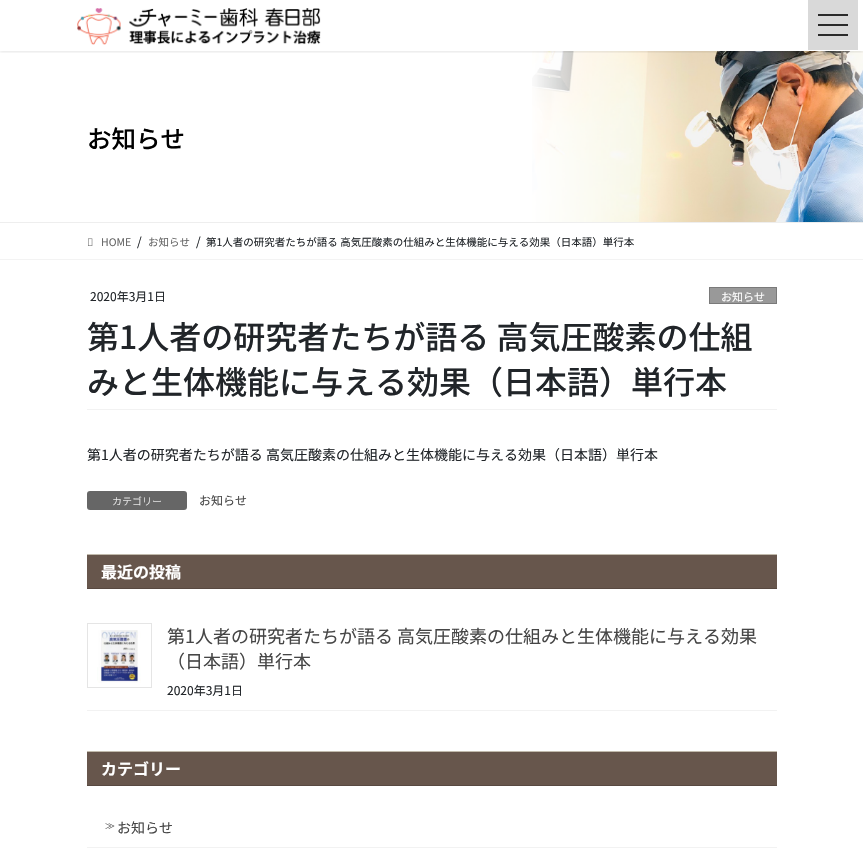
void draw(SkCanvas* canvas) {
	SkPaint paint;
	paint.setAntiAlias(true);
	canvas->clear(0xffffffff);
	canvas->drawImageRect(SkImages::DeferredFromEncodedData(SkData::MakeFromFileName("img2.png")), SkRect::MakeXYWH(532, 51, 331, 171), SkSamplingOptions());
	canvas->save();
	canvas->clipRect(SkRect::MakeXYWH(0, 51, 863, 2));
	paint.setColor(0x1a000000);
	paint.setMaskFilter(SkMaskFilter::MakeBlur(kNormal_SkBlurStyle, 1.5));
	canvas->drawRect(SkRect::MakeXYWH(0, 1, 863, 51), paint);
	paint.setMaskFilter(nullptr);
	canvas->restore();
	canvas->drawImageRect(SkImages::DeferredFromEncodedData(SkData::MakeFromFileName("img1.png")), SkRect::MakeXYWH(77, 8, 244, 37), SkSamplingOptions());
	paint.setColor(0xffd9d9d9);
	canvas->drawRect(SkRect::MakeXYWH(808, 0, 50, 50), paint);
	paint.setColor(0xff2b2b2b);
	canvas->drawRect(SkRect::MakeXYWH(818, 14, 30, 2), paint);
	canvas->drawRect(SkRect::MakeXYWH(818, 24, 30, 2), paint);
	canvas->drawRect(SkRect::MakeXYWH(818, 34, 30, 2), paint);
	paint.setColor(0xffeeeeee);
	canvas->drawRect(SkRect::MakeXYWH(0, 222, 863, 1), paint);
	SkFont f1(fontMgr->matchFamilyStyle("Noto Sans JP", SkFontStyle(500, SkFontStyle::kNormal_Width, SkFontStyle::kUpright_Slant)), 24.5);
	f1.setSubpixel(true);
	paint.setColor(0xff000000);
	canvas->drawString("お知らせ", 87, 148, f1, paint);
	paint.setColor(0xfff3f3f3);
	canvas->drawRect(SkRect::MakeXYWH(0, 259, 863, 1), paint);
	canvas->drawImageRect(SkImages::DeferredFromEncodedData(SkData::MakeFromFileName("img3.png")), SkRect::MakeXYWH(88, 238, 5, 8), SkSamplingOptions());
	SkFont f2(fontMgr->matchFamilyStyle("Noto Sans JP", SkFontStyle::Normal()), 10.5);
	f2.setSubpixel(true);
	paint.setColor(0xff666666);
	canvas->drawString("HOME", 101, 246, f2, paint);
	SkFont f3(fontMgr->matchFamilyStyle("Noto Sans JP", SkFontStyle::Normal()), 12);
	f3.setSubpixel(true);
	paint.setColor(0xff212529);
	canvas->drawString("/", 137, 246, f3, paint);
	paint.setColor(0xff666666);
	canvas->drawString("お知らせ", 148, 246, f2, paint);
	paint.setColor(0xff212529);
	canvas->drawString("/", 196, 246, f3, paint);
	canvas->drawString("第1人者の研究者たちが語る 高気圧酸素の仕組みと生体機能に与える効果（日本語）単行本", 206, 246, f2, paint);
	paint.setColor(0xfff2f2f2);
	canvas->drawRect(SkRect::MakeXYWH(87, 409, 690, 1), paint);
	paint.setColor(0xff212529);
	canvas->drawString("2020年3月1日", 90, 301, f3, paint);
	paint.setColor(0xff999999);
	canvas->drawRect(SkRect::MakeXYWH(709.5, 287.5, 67, 16), paint);
	paint.setStroke(true);
	paint.setStrokeWidth(1);
	paint.setColor(0xff7a7a7a);
	canvas->drawRect(SkRect::MakeXYWH(709.5, 287.5, 67, 16), paint);
	SkFont f4(fontMgr->matchFamilyStyle("Noto Sans JP", SkFontStyle::Normal()), 11);
	f4.setSubpixel(true);
	paint.setStroke(false);
	paint.setColor(0xffffffff);
	canvas->drawString("お知らせ", 721, 301, f4, paint);
	SkFont f5(fontMgr->matchFamilyStyle("Noto Sans JP", SkFontStyle(500, SkFontStyle::kNormal_Width, SkFontStyle::kUpright_Slant)), 32);
	f5.setSubpixel(true);
	paint.setColor(0xff212529);
	canvas->drawString("第1人者の研究者たちが語る 高気圧酸素の仕組", 87, 349, f5, paint);
	canvas->drawString("みと生体機能に与える効果（日本語）単行本", 87, 394, f5, paint);
	SkFont f6(fontMgr->matchFamilyStyle("Noto Sans JP", SkFontStyle::Normal()), 14);
	f6.setSubpixel(true);
	canvas->drawString("第1人者の研究者たちが語る 高気圧酸素の仕組みと生体機能に与える効果（日本語）単行本", 87, 460, f6, paint);
	paint.setColor(0xff666666);
	canvas->drawRoundRect(SkRect::MakeXYWH(87, 491, 100, 19), 3, 3, paint);
	SkFont f7(fontMgr->matchFamilyStyle("Noto Sans JP", SkFontStyle(300, SkFontStyle::kNormal_Width, SkFontStyle::kUpright_Slant)), 10);
	f7.setSubpixel(true);
	paint.setColor(0xffffffff);
	canvas->drawString("カテゴリー", 112, 505, f7, paint);
	paint.setColor(0xff464646);
	canvas->drawString("お知らせ", 199, 505, f3, paint);
	paint.setColor(0xff67564c);
	canvas->drawRect(SkRect::MakeXYWH(87, 555, 690, 33), paint);
	paint.setColor(0xffc1baac);
	canvas->drawRect(SkRect::MakeXYWH(87, 554, 690, 1), paint);
	paint.setColor(0xff584941);
	canvas->drawRect(SkRect::MakeXYWH(87, 588, 690, 1), paint);
	SkFont f8(fontMgr->matchFamilyStyle("Noto Sans JP", SkFontStyle::Bold()), 16);
	f8.setSubpixel(true);
	paint.setColor(0xffffffff);
	canvas->drawString("最近の投稿", 101, 578, f8, paint);
	paint.setColor(0xfff2f2f2);
	canvas->drawRect(SkRect::MakeXYWH(87, 710, 690, 1), paint);
	paint.setStroke(true);
	paint.setColor(0xffe5e5e5);
	canvas->drawRect(SkRect::MakeXYWH(87.5, 623.5, 64, 64), paint);
	canvas->drawImageRect(SkImages::DeferredFromEncodedData(SkData::MakeFromFileName("img4.png")), SkRect::MakeXYWH(97, 630, 44, 53), SkSamplingOptions());
	SkFont f9(fontMgr->matchFamilyStyle("Noto Sans JP", SkFontStyle::Normal()), 18);
	f9.setSubpixel(true);
	paint.setStroke(false);
	paint.setColor(0xff464646);
	canvas->drawString("第1人者の研究者たちが語る 高気圧酸素の仕組みと生体機能に与える効果", 167, 643, f9, paint);
	canvas->drawString("（日本語）単行本", 167, 668, f9, paint);
	paint.setColor(0xff212529);
	canvas->drawString("2020年3月1日", 167, 695, f3, paint);
	paint.setColor(0xff67564c);
	canvas->drawRect(SkRect::MakeXYWH(87, 752, 690, 33), paint);
	paint.setColor(0xffc1baac);
	canvas->drawRect(SkRect::MakeXYWH(87, 751, 690, 1), paint);
	paint.setColor(0xff584941);
	canvas->drawRect(SkRect::MakeXYWH(87, 785, 690, 1), paint);
	paint.setColor(0xffffffff);
	canvas->drawString("カテゴリー", 101, 775, f8, paint);
	paint.setColor(0xfff2f2f2);
	canvas->drawRect(SkRect::MakeXYWH(87, 847, 690, 1), paint);
	SkFont f10(fontMgr->matchFamilyStyle("WenQuanYi Zen Hei", SkFontStyle(500, SkFontStyle::kNormal_Width, SkFontStyle::kUpright_Slant)), 10);
	f10.setSubpixel(true);
	paint.setColor(0xff464646);
	canvas->drawString("≫", 105, 829, f10, paint);
	canvas->drawString("お知らせ", 117, 833, f6, paint);
}
